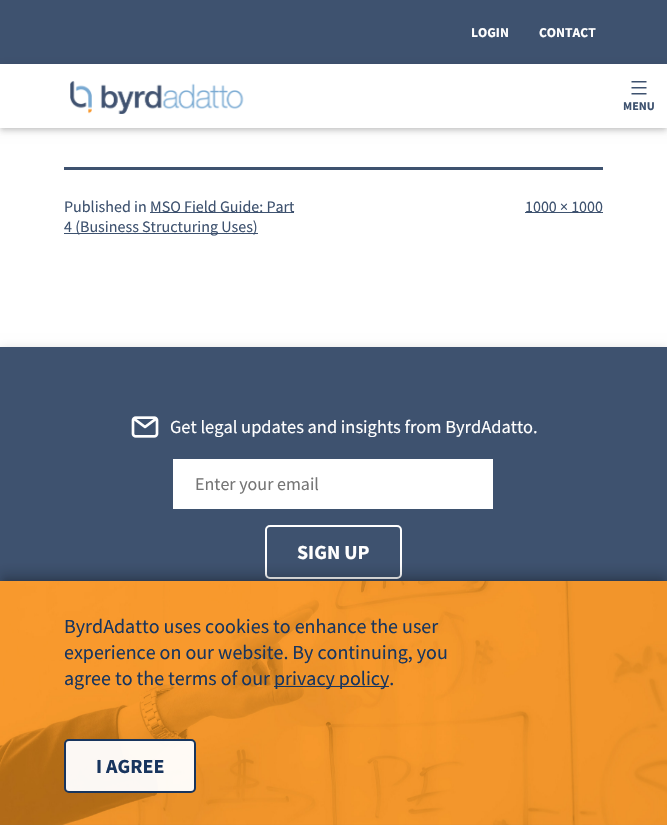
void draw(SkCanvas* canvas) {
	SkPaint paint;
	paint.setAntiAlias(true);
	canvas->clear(0xffffffff);
	paint.setColor(0xff3e526f);
	canvas->drawRect(SkRect::MakeXYWH(0, 0, 667, 64), paint);
	SkFont f1(fontMgr->matchFamilyStyle("Source Sans Pro", SkFontStyle::Bold()), 13.5);
	f1.setSubpixel(true);
	paint.setColor(0xffffffff);
	canvas->drawString("LOGIN", 471, 37, f1, paint);
	canvas->drawString("CONTACT", 539, 37, f1, paint);
	paint.setColor(0x12000000);
	paint.setMaskFilter(SkMaskFilter::MakeBlur(kNormal_SkBlurStyle, 5));
	canvas->drawRect(SkRect::MakeXYWH(0, 65, 667, 64), paint);
	paint.setMaskFilter(nullptr);
	paint.setColor(0x14000000);
	paint.setMaskFilter(SkMaskFilter::MakeBlur(kNormal_SkBlurStyle, 2.5));
	canvas->drawRect(SkRect::MakeXYWH(0, 68, 667, 64), paint);
	paint.setMaskFilter(nullptr);
	paint.setColor(0x1f000000);
	paint.setMaskFilter(SkMaskFilter::MakeBlur(kNormal_SkBlurStyle, 2));
	canvas->drawRect(SkRect::MakeXYWH(1, 67, 665, 62), paint);
	paint.setMaskFilter(nullptr);
	paint.setColor(0xffffffff);
	canvas->drawRect(SkRect::MakeXYWH(0, 64, 667, 64), paint);
	canvas->drawImageRect(SkImages::DeferredFromEncodedData(SkData::MakeFromFileName("img1.png")), SkRect::MakeXYWH(70, 81, 174, 33), SkSamplingOptions());
	canvas->drawImageRect(SkImages::DeferredFromEncodedData(SkData::MakeFromFileName("img2.png")), SkRect::MakeXYWH(631, 81, 16, 14), SkSamplingOptions());
	SkFont f2(fontMgr->matchFamilyStyle("Source Sans Pro", SkFontStyle::Bold()), 12);
	f2.setSubpixel(true);
	paint.setColor(0xff3e526f);
	canvas->drawString("MENU", 623, 110, f2, paint);
	canvas->drawRect(SkRect::MakeXYWH(64, 167, 539, 3), paint);
	SkFont f3(fontMgr->matchFamilyStyle("Source Sans Pro", SkFontStyle::Normal()), 16);
	f3.setSubpixel(true);
	canvas->drawString("Published in", 64, 212, f3, paint);
	canvas->drawRect(SkRect::MakeXYWH(150, 212, 144, 1), paint);
	canvas->drawString("MSO Field Guide: Part", 150, 212, f3, paint);
	canvas->drawRect(SkRect::MakeXYWH(64, 233, 194, 1), paint);
	canvas->drawString("4 (Business Structuring Uses)", 64, 232, f3, paint);
	canvas->drawRect(SkRect::MakeXYWH(525, 212, 78, 1), paint);
	canvas->drawString("1000 × 1000", 525, 212, f3, paint);
	paint.setColor(0x1f000000);
	paint.setMaskFilter(SkMaskFilter::MakeBlur(kNormal_SkBlurStyle, 5));
	canvas->drawRect(SkRect::MakeXYWH(0, 348, 667, 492), paint);
	paint.setMaskFilter(nullptr);
	paint.setColor(0xff3e526f);
	canvas->drawRect(SkRect::MakeXYWH(0, 347, 667, 478), paint);
	canvas->drawImageRect(SkImages::DeferredFromEncodedData(SkData::MakeFromFileName("img3.png")), SkRect::MakeXYWH(131, 416, 28, 22), SkSamplingOptions());
	SkFont f4(fontMgr->matchFamilyStyle("Source Sans Pro", SkFontStyle::Normal()), 18.4);
	f4.setSubpixel(true);
	paint.setColor(0xffffffff);
	canvas->drawString("Get legal updates and insights from ByrdAdatto.", 170, 433, f4, paint);
	canvas->drawRect(SkRect::MakeXYWH(173, 459, 320, 50), paint);
	SkFont f5(fontMgr->matchFamilyStyle("Source Sans Pro", SkFontStyle::Normal()), 18);
	f5.setSubpixel(true);
	paint.setColor(0xff757575);
	canvas->drawString("Enter your email", 195, 490, f5, paint);
	paint.setStroke(true);
	paint.setStrokeWidth(2);
	paint.setColor(0xffffffff);
	canvas->drawRoundRect(SkRect::MakeXYWH(266, 526, 135, 52), 4, 4, paint);
	SkFont f6(fontMgr->matchFamilyStyle("Source Sans Pro", SkFontStyle::Bold()), 20);
	f6.setSubpixel(true);
	paint.setStroke(false);
	canvas->drawString("SIGN UP", 297, 559, f6, paint);
	paint.setColor(0x1f000000);
	paint.setMaskFilter(SkMaskFilter::MakeBlur(kNormal_SkBlurStyle, 7));
	canvas->drawRect(SkRect::MakeXYWH(590, 751, 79, 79), paint);
	paint.setMaskFilter(nullptr);
	paint.setColor(0x24000000);
	paint.setMaskFilter(SkMaskFilter::MakeBlur(kNormal_SkBlurStyle, 5));
	canvas->drawRect(SkRect::MakeXYWH(591, 757, 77, 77), paint);
	paint.setMaskFilter(nullptr);
	paint.setStroke(true);
	paint.setStrokeWidth(1);
	paint.setColor(0xff547395);
	canvas->drawRect(SkRect::MakeXYWH(592.5, 750.5, 74, 74), paint);
	paint.setStroke(false);
	paint.setColor(0x14000000);
	paint.setMaskFilter(SkMaskFilter::MakeBlur(kNormal_SkBlurStyle, 7));
	canvas->drawRect(SkRect::MakeXYWH(-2, 576, 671, 248), paint);
	paint.setMaskFilter(nullptr);
	paint.setColor(0x1a000000);
	paint.setMaskFilter(SkMaskFilter::MakeBlur(kNormal_SkBlurStyle, 5));
	canvas->drawRect(SkRect::MakeXYWH(-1, 572, 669, 246), paint);
	paint.setMaskFilter(nullptr);
	paint.setColor(0x24000000);
	paint.setMaskFilter(SkMaskFilter::MakeBlur(kNormal_SkBlurStyle, 2.5));
	canvas->drawRect(SkRect::MakeXYWH(3, 579, 661, 238), paint);
	paint.setMaskFilter(nullptr);
	canvas->drawImageRect(SkImages::DeferredFromEncodedData(SkData::MakeFromFileName("img4.png")), SkRect::MakeXYWH(0, 581, 667, 244), SkSamplingOptions());
	SkFont f7(fontMgr->matchFamilyStyle("Source Sans Pro", SkFontStyle::Normal()), 20);
	f7.setSubpixel(true);
	paint.setColor(0xff18355e);
	canvas->drawString("ByrdAdatto uses cookies to enhance the user", 64, 633, f7, paint);
	canvas->drawString("experience on our website. By continuing, you", 64, 659, f7, paint);
	canvas->drawString("agree to the terms of our", 64, 685, f7, paint);
	canvas->drawRect(SkRect::MakeXYWH(274, 686, 115, 1), paint);
	canvas->drawString("privacy policy.", 274, 685, f7, paint);
	paint.setColor(0xf2ffffff);
	canvas->drawRoundRect(SkRect::MakeXYWH(65, 740, 130, 52), 4, 4, paint);
	paint.setStroke(true);
	paint.setStrokeWidth(2);
	paint.setColor(0xff18355d);
	canvas->drawRoundRect(SkRect::MakeXYWH(65, 740, 130, 52), 4, 4, paint);
	paint.setStroke(false);
	paint.setColor(0xff18355e);
	canvas->drawString("I AGREE", 96, 773, f6, paint);
}
